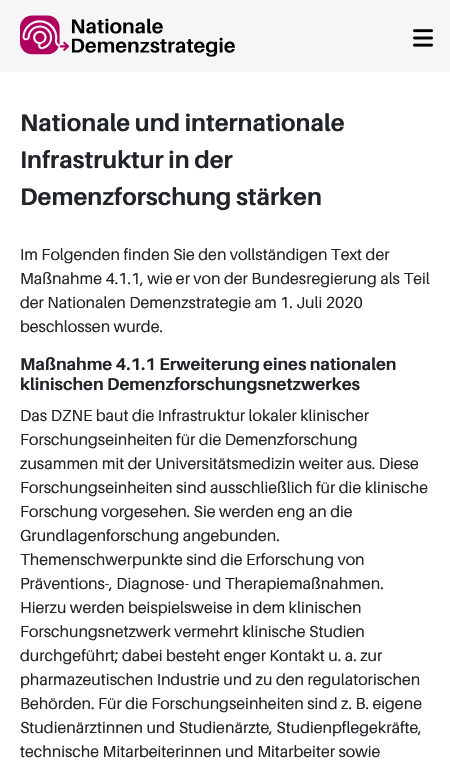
void draw(SkCanvas* canvas) {
	SkPaint paint;
	paint.setAntiAlias(true);
	canvas->clear(0xffffffff);
	paint.setColor(0xfff6f6f6);
	canvas->drawRect(SkRect::MakeXYWH(0, 0, 450, 72), paint);
	canvas->drawImageRect(SkImages::DeferredFromEncodedData(SkData::MakeFromFileName("img1.png")), SkRect::MakeXYWH(20, 15, 215, 42), SkSamplingOptions());
	canvas->drawImageRect(SkImages::DeferredFromEncodedData(SkData::MakeFromFileName("img2.png")), SkRect::MakeXYWH(413, 29, 20, 18), SkSamplingOptions());
	SkFont f1(fontMgr->matchFamilyStyle("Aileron", SkFontStyle::Bold()), 24);
	f1.setSubpixel(true);
	paint.setColor(0xff212529);
	canvas->drawString("Nationale und internationale", 20, 131, f1, paint);
	canvas->drawString("Infrastruktur in der", 20, 168, f1, paint);
	canvas->drawString("Demenzforschung stärken", 20, 205, f1, paint);
	SkFont f2(fontMgr->matchFamilyStyle("Aileron", SkFontStyle::Normal()), 16);
	f2.setSubpixel(true);
	canvas->drawString("Im Folgenden finden Sie den vollständigen Text der", 20, 260, f2, paint);
	canvas->drawString("Maßnahme 4.1.1, wie er von der Bundesregierung als Teil", 20, 284, f2, paint);
	canvas->drawString("der Nationalen Demenzstrategie am 1. Juli 2020", 20, 308, f2, paint);
	canvas->drawString("beschlossen wurde.", 20, 332, f2, paint);
	SkFont f3(fontMgr->matchFamilyStyle("Aileron", SkFontStyle::Bold()), 17.1);
	f3.setSubpixel(true);
	canvas->drawString("Maßnahme 4.1.1 Erweiterung eines nationalen", 20, 370, f3, paint);
	canvas->drawString("klinischen Demenzforschungsnetzwerkes", 20, 390, f3, paint);
	canvas->drawString("Das DZNE baut die Infrastruktur lokaler klinischer", 20, 421, f2, paint);
	canvas->drawString("Forschungseinheiten für die Demenzforschung", 20, 445, f2, paint);
	canvas->drawString("zusammen mit der Universitätsmedizin weiter aus. Diese", 20, 469, f2, paint);
	canvas->drawString("Forschungseinheiten sind ausschließlich für die klinische", 20, 493, f2, paint);
	canvas->drawString("Forschung vorgesehen. Sie werden eng an die", 20, 517, f2, paint);
	canvas->drawString("Grundlagenforschung angebunden.", 20, 541, f2, paint);
	canvas->drawString("Themenschwerpunkte sind die Erforschung von", 20, 565, f2, paint);
	canvas->drawString("Präventions-, Diagnose- und Therapiemaßnahmen.", 20, 589, f2, paint);
	canvas->drawString("Hierzu werden beispielsweise in dem klinischen", 20, 613, f2, paint);
	canvas->drawString("Forschungsnetzwerk vermehrt klinische Studien", 20, 637, f2, paint);
	canvas->drawString("durchgeführt; dabei besteht enger Kontakt u. a. zur", 20, 661, f2, paint);
	canvas->drawString("pharmazeutischen Industrie und zu den regulatorischen", 20, 685, f2, paint);
	canvas->drawString("Behörden. Für die Forschungseinheiten sind z. B. eigene", 20, 709, f2, paint);
	canvas->drawString("Studienärztinnen und Studienärzte, Studienpflegekräfte,", 20, 733, f2, paint);
	canvas->drawString("technische Mitarbeiterinnen und Mitarbeiter sowie", 20, 757, f2, paint);
}
